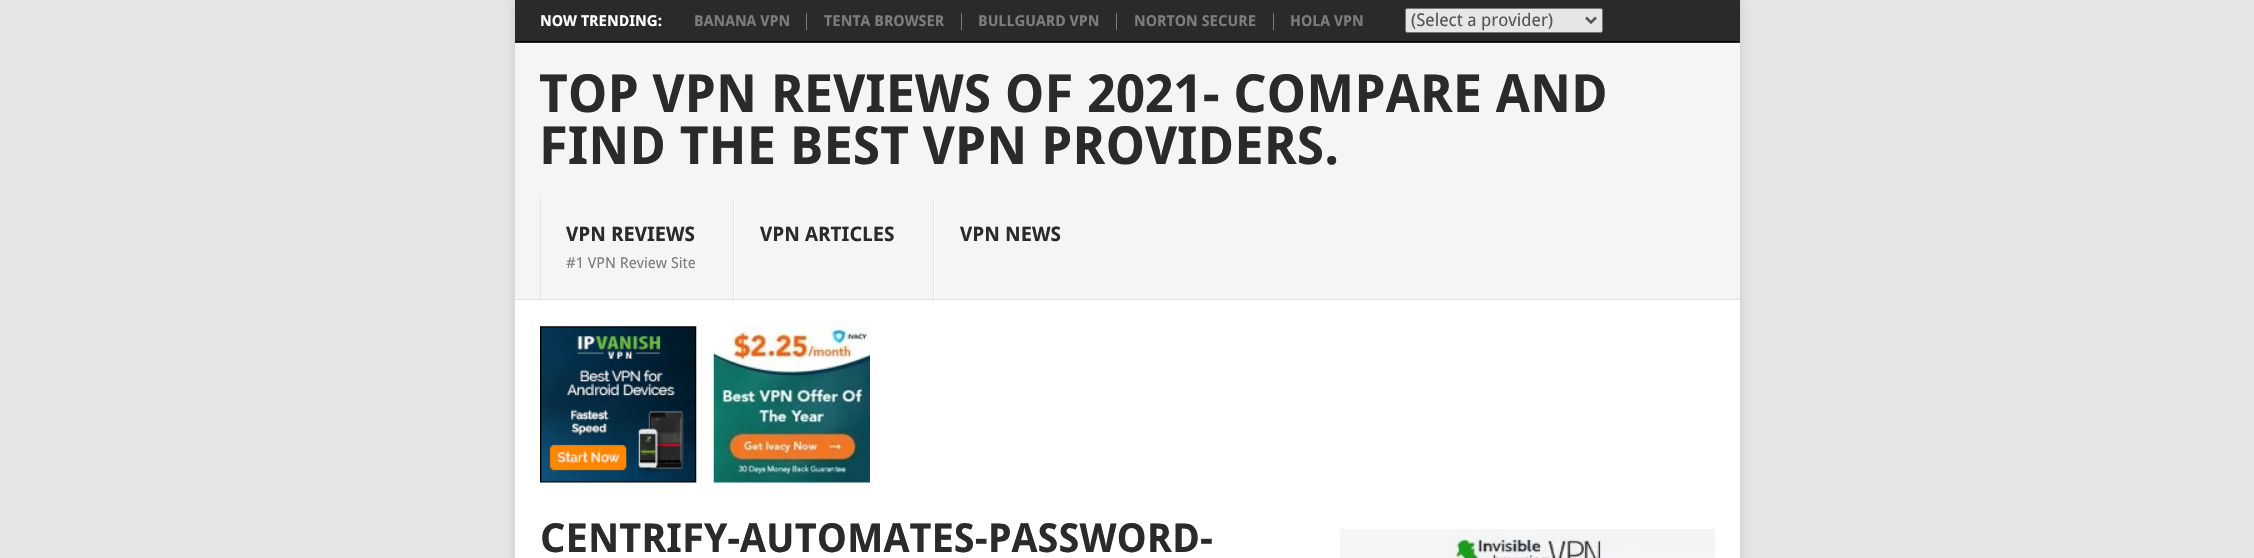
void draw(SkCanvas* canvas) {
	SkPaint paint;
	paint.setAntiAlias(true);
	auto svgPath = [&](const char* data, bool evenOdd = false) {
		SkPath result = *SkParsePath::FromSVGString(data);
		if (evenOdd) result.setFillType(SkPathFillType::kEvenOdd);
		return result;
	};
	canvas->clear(0xffe7e5e6);
	paint.setColor(0x2b323232);
	paint.setMaskFilter(SkMaskFilter::MakeBlur(kNormal_SkBlurStyle, 6));
	canvas->drawRect(SkRect::MakeXYWH(515, 0, 1225, 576), paint);
	paint.setMaskFilter(nullptr);
	paint.setColor(0xffffffff);
	canvas->drawRect(SkRect::MakeXYWH(515, 300, 1225, 258), paint);
	paint.setColor(0xff2a2a2a);
	canvas->drawRect(SkRect::MakeXYWH(515, 0, 1225, 43), paint);
	paint.setColor(0xff000000);
	canvas->drawRect(SkRect::MakeXYWH(515, 41, 1225, 1), paint);
	SkFont f1(fontMgr->matchFamilyStyle("Droid Sans", SkFontStyle::Bold()), 15);
	f1.setSubpixel(true);
	paint.setColor(0xffffffff);
	canvas->drawString("NOW TRENDING:", 540, 26, f1, paint);
	paint.setColor(0xff7d7d7d);
	canvas->drawRect(SkRect::MakeXYWH(806, 13, 1, 17), paint);
	canvas->drawString("BANANA VPN", 694, 26, f1, paint);
	canvas->drawRect(SkRect::MakeXYWH(961, 13, 1, 17), paint);
	canvas->drawString("TENTA BROWSER", 824, 26, f1, paint);
	canvas->drawRect(SkRect::MakeXYWH(1116, 13, 1, 17), paint);
	canvas->drawString("BULLGUARD VPN", 978, 26, f1, paint);
	canvas->drawRect(SkRect::MakeXYWH(1273, 13, 1, 17), paint);
	canvas->drawString("NORTON SECURE", 1134, 26, f1, paint);
	canvas->drawString("HOLA VPN", 1290, 26, f1, paint);
	paint.setColor(0xffe7e5e6);
	canvas->drawRoundRect(SkRect::MakeXYWH(1405.5, 8.5, 197, 24), 2, 2, paint);
	paint.setStroke(true);
	paint.setStrokeWidth(1);
	paint.setColor(0xff767676);
	canvas->drawRoundRect(SkRect::MakeXYWH(1405.5, 8.5, 197, 24), 2, 2, paint);
	paint.setStrokeWidth(2.5);
	paint.setColor(0xff555555);
	canvas->drawPath(svgPath("M1586 17.5L1591 22.5L1596 17.5"), paint);
	SkFont f2(fontMgr->matchFamilyStyle("Droid Sans", SkFontStyle::Normal()), 17.5);
	f2.setSubpixel(true);
	paint.setStroke(false);
	canvas->drawString("(Select a provider)", 1411, 26, f2, paint);
	paint.setColor(0xfff5f5f5);
	canvas->drawRect(SkRect::MakeXYWH(515, 43, 1225, 256), paint);
	SkFont f3(fontMgr->matchFamilyStyle("Droid Sans", SkFontStyle::Bold()), 52.5);
	f3.setSubpixel(true);
	paint.setColor(0xff2a2a2a);
	canvas->drawString("TOP VPN REVIEWS OF 2021- COMPARE AND", 539, 112, f3, paint);
	canvas->drawString("FIND THE BEST VPN PROVIDERS.", 539, 164, f3, paint);
	paint.setColor(0xffe2e2e2);
	canvas->drawRect(SkRect::MakeXYWH(733, 198, 1, 102), paint);
	canvas->drawRect(SkRect::MakeXYWH(540, 198, 1, 102), paint);
	SkFont f4(fontMgr->matchFamilyStyle("Droid Sans", SkFontStyle::Bold()), 20);
	f4.setSubpixel(true);
	paint.setColor(0xff2a2a2a);
	canvas->drawString("VPN REVIEWS", 566, 241, f4, paint);
	SkFont f5(fontMgr->matchFamilyStyle("Droid Sans", SkFontStyle::Normal()), 15);
	f5.setSubpixel(true);
	paint.setColor(0xff7d7d7d);
	canvas->drawString("#1 VPN Review Site", 566, 268, f5, paint);
	paint.setColor(0xffe2e2e2);
	canvas->drawRect(SkRect::MakeXYWH(933, 198, 1, 102), paint);
	paint.setColor(0xffffffff);
	canvas->drawRect(SkRect::MakeXYWH(734, 198, 1, 102), paint);
	paint.setColor(0xff2a2a2a);
	canvas->drawString("VPN ARTICLES", 760, 241, f4, paint);
	paint.setColor(0xffffffff);
	canvas->drawRect(SkRect::MakeXYWH(934, 198, 1, 102), paint);
	paint.setColor(0xff2a2a2a);
	canvas->drawString("VPN NEWS", 960, 241, f4, paint);
	paint.setColor(0xffe2e2e2);
	canvas->drawRect(SkRect::MakeXYWH(515, 299, 1225, 1), paint);
	canvas->drawImageRect(SkImages::DeferredFromEncodedData(SkData::MakeFromFileName("img1.png")), SkRect::MakeXYWH(540, 326, 157, 157), SkSamplingOptions());
	canvas->drawImageRect(SkImages::DeferredFromEncodedData(SkData::MakeFromFileName("img2.png")), SkRect::MakeXYWH(713, 326, 157, 157), SkSamplingOptions());
	SkFont f6(fontMgr->matchFamilyStyle("Droid Sans", SkFontStyle::Bold()), 40);
	f6.setSubpixel(true);
	paint.setColor(0xff2a2a2a);
	canvas->drawString("CENTRIFY-AUTOMATES-PASSWORD-", 540, 552, f6, paint);
	canvas->drawImageRect(SkImages::DeferredFromEncodedData(SkData::MakeFromFileName("img3.png")), SkRect::MakeXYWH(1340, 529, 375, 29), SkSamplingOptions());
}
